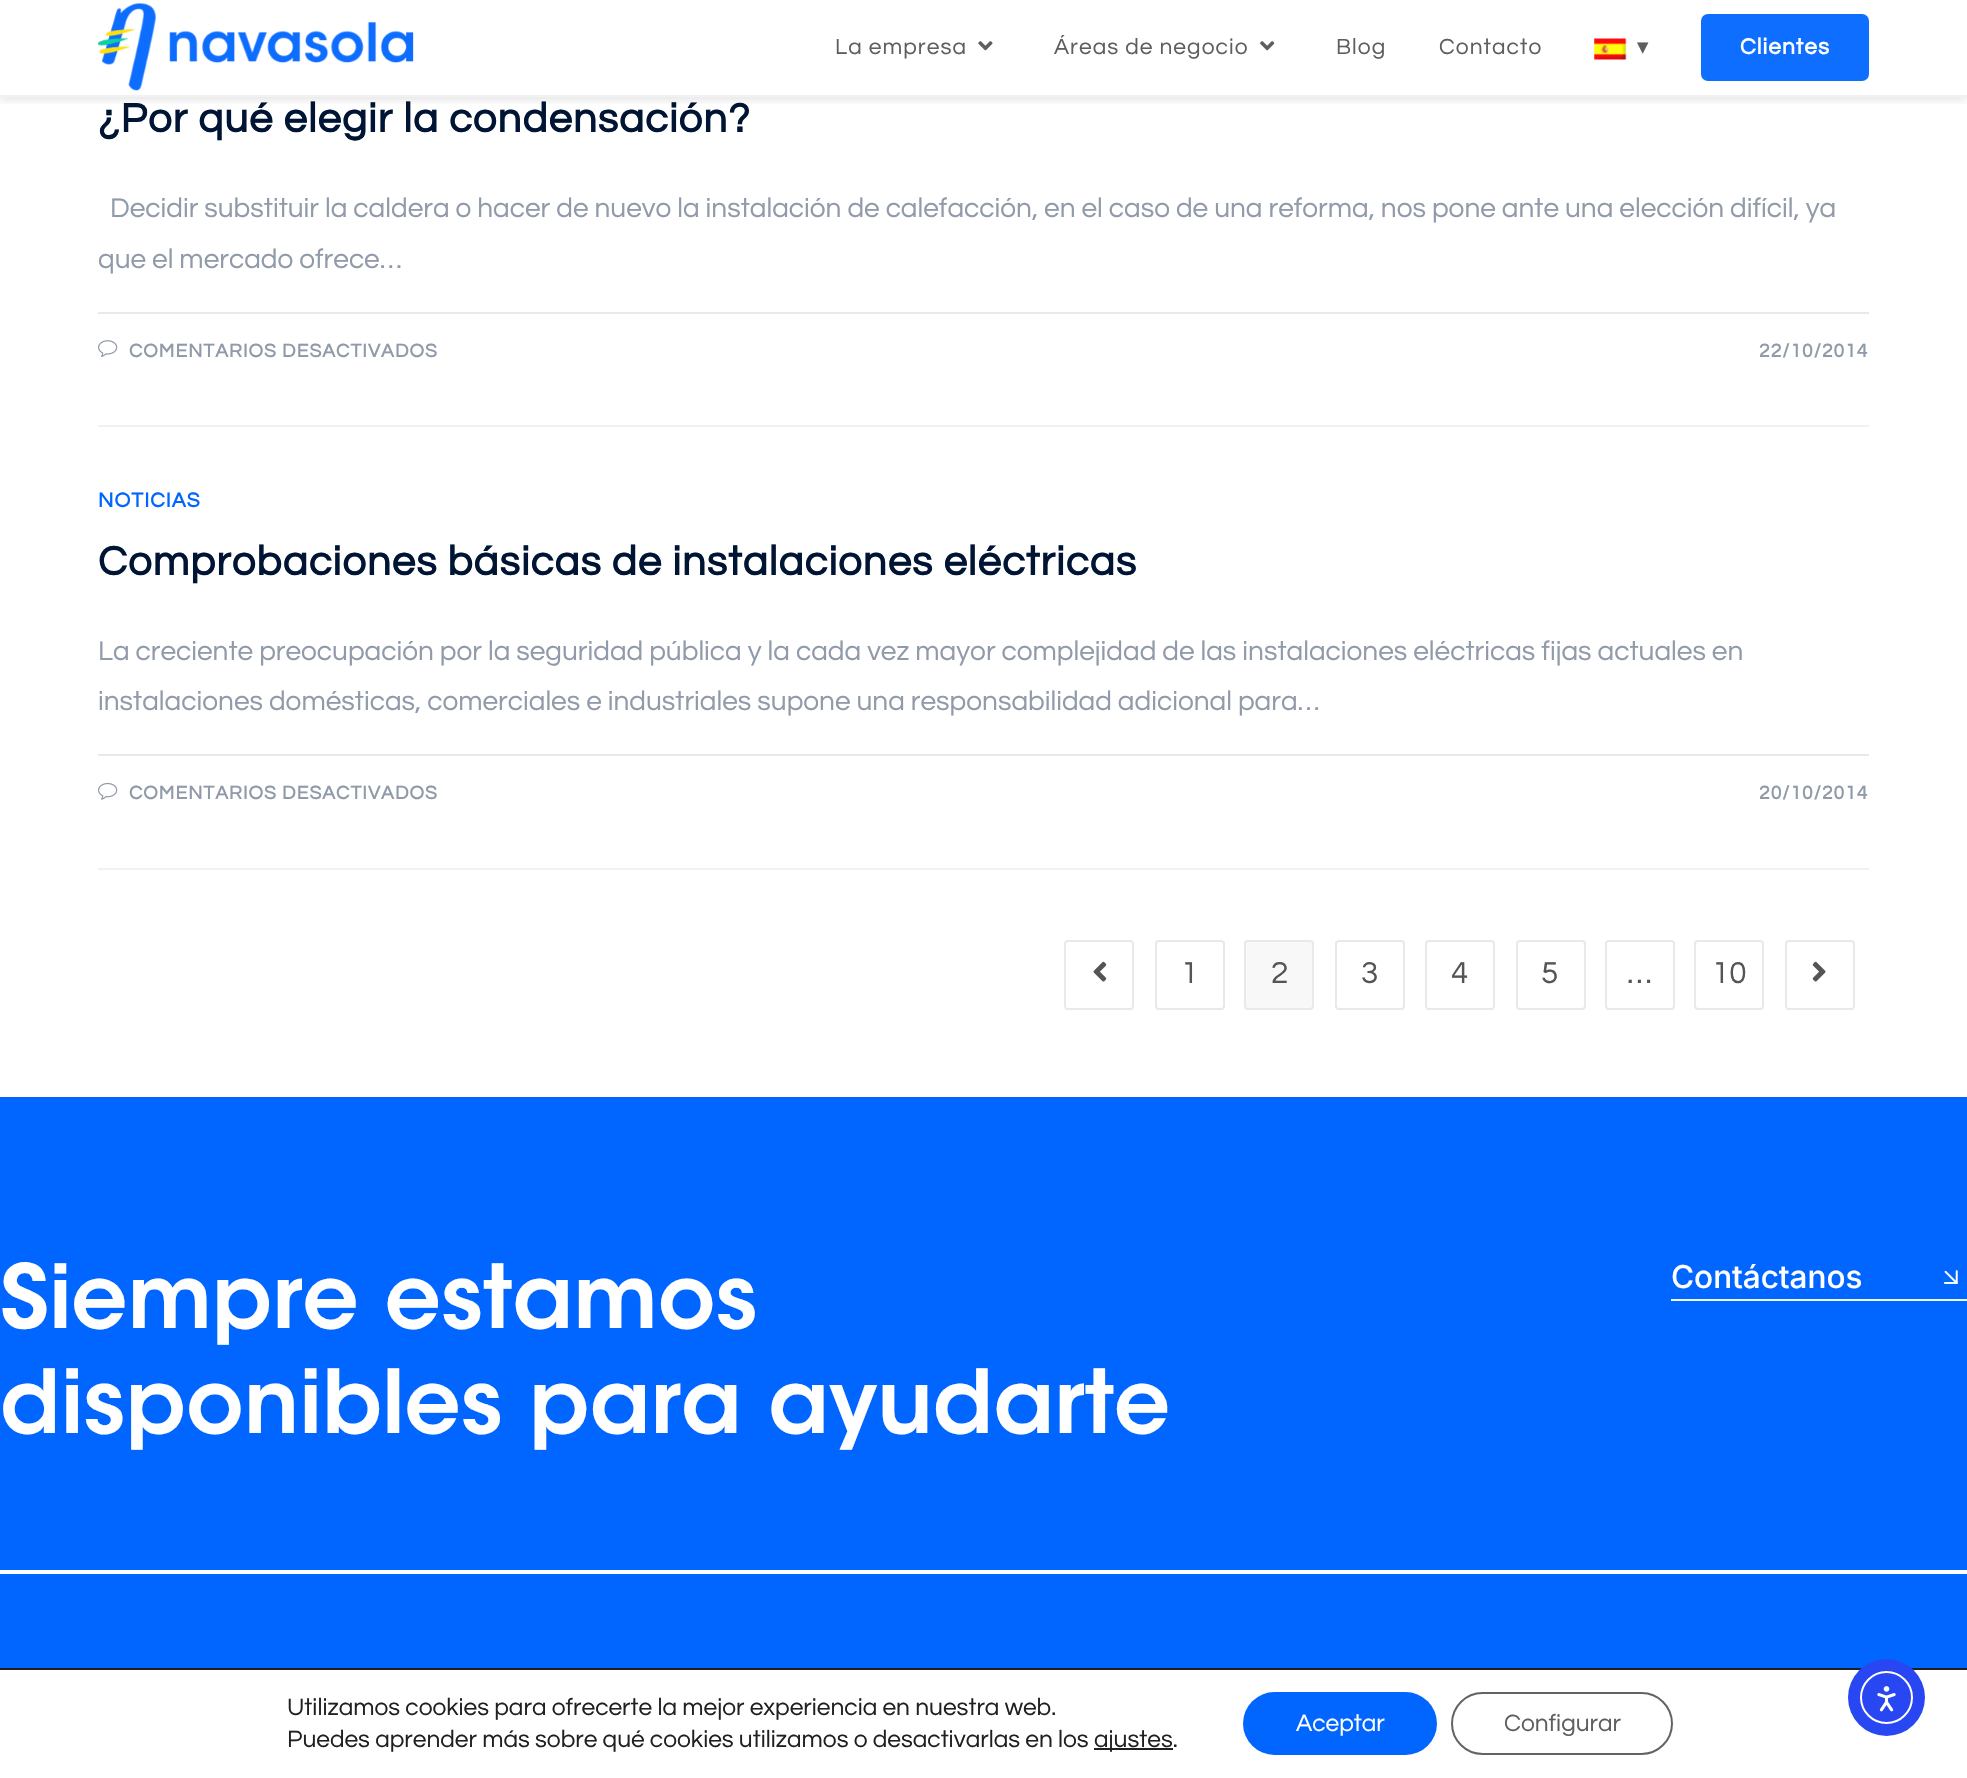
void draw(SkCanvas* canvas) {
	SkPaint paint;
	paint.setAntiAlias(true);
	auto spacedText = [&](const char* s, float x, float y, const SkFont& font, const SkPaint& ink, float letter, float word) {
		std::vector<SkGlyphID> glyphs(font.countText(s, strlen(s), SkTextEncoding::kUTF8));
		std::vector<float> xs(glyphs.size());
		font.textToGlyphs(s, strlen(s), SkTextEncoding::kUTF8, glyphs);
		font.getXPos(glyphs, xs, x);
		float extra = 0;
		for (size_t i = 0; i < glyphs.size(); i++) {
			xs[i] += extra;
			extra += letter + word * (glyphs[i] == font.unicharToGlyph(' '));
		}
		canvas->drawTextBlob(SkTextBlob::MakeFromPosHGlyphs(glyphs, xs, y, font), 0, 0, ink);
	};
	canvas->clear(0xffffffff);
	canvas->save();
	canvas->clipRect(SkRect::MakeXYWH(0, 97, 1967, 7));
	paint.setColor(0x1a000000);
	paint.setMaskFilter(SkMaskFilter::MakeBlur(kNormal_SkBlurStyle, 4.5));
	canvas->drawRect(SkRect::MakeXYWH(0, 4, 1967, 96), paint);
	paint.setMaskFilter(nullptr);
	canvas->restore();
	paint.setColor(0xfff2f2f2);
	canvas->drawRect(SkRect::MakeXYWH(0, 95, 1967, 2), paint);
	canvas->drawImageRect(SkImages::DeferredFromEncodedData(SkData::MakeFromFileName("img1.png")), SkRect::MakeXYWH(98, 3, 316, 88), SkSamplingOptions());
	SkFont f1(fontMgr->matchFamilyStyle("Questrial", SkFontStyle::Normal()), 22.75);
	f1.setSubpixel(true);
	paint.setColor(0xff5e5e5e);
	spacedText("La empresa", 835, 54, f1, paint, 1.05, 0);
	canvas->drawImageRect(SkImages::DeferredFromEncodedData(SkData::MakeFromFileName("img2.png")), SkRect::MakeXYWH(978, 41, 15, 10), SkSamplingOptions());
	spacedText("Áreas de negocio", 1054, 54, f1, paint, 1.05, 0);
	canvas->drawImageRect(SkImages::DeferredFromEncodedData(SkData::MakeFromFileName("img3.png")), SkRect::MakeXYWH(1260, 41, 15, 10), SkSamplingOptions());
	spacedText("Blog", 1336, 54, f1, paint, 1.05, 0);
	spacedText("Contacto", 1439, 54, f1, paint, 1.05, 0);
	canvas->drawImageRect(SkImages::DeferredFromEncodedData(SkData::MakeFromFileName("img4.png")), SkRect::MakeXYWH(1594, 38, 33, 22), SkSamplingOptions());
	SkFont f2(fontMgr->matchFamilyStyle("DejaVu Sans", SkFontStyle::Normal()), 22.75);
	f2.setSubpixel(true);
	spacedText("▾", 1637, 54, f2, paint, 1.05, 0);
	paint.setColor(0xff0d6eff);
	canvas->drawRoundRect(SkRect::MakeXYWH(1701, 14, 168, 67), 7, 7, paint);
	SkFont f3(fontMgr->matchFamilyStyle("Questrial", SkFontStyle::Bold()), 22.75);
	f3.setSubpixel(true);
	paint.setColor(0xffffffff);
	spacedText("Clientes", 1740, 54, f3, paint, 1.05, 0);
	paint.setColor(0xfff1f1f1);
	canvas->drawRect(SkRect::MakeXYWH(98, 425, 1771, 2), paint);
	SkFont f4(fontMgr->matchFamilyStyle("Questrial", SkFontStyle::Bold()), 42);
	f4.setSubpixel(true);
	paint.setColor(0xff001433);
	spacedText("¿Por qué elegir la condensación?", 98, 132, f4, paint, 1.05, 0);
	SkFont f5(fontMgr->matchFamilyStyle("Questrial", SkFontStyle::Normal()), 28);
	f5.setSubpixel(true);
	paint.setColor(0xff909aa9);
	canvas->drawString("Decidir substituir la caldera o hacer de nuevo la instalación de calefacción, en el caso de una reforma, nos pone ante una elección difícil, ya", 110, 217, f5, paint);
	canvas->drawString("que el mercado ofrece…", 98, 268, f5, paint);
	paint.setColor(0xffe9e9e9);
	canvas->drawRect(SkRect::MakeXYWH(98, 312, 1771, 2), paint);
	canvas->drawImageRect(SkImages::DeferredFromEncodedData(SkData::MakeFromFileName("img5.png")), SkRect::MakeXYWH(98, 340, 20, 17), SkSamplingOptions());
	SkFont f6(fontMgr->matchFamilyStyle("Questrial", SkFontStyle::Bold()), 19.25);
	f6.setSubpixel(true);
	paint.setColor(0xff909aa9);
	spacedText("COMENTARIOS DESACTIVADOS", 129, 357, f6, paint, 1.05, 0);
	spacedText("22/10/2014", 1759, 357, f6, paint, 1.05, 0);
	paint.setColor(0xfff1f1f1);
	canvas->drawRect(SkRect::MakeXYWH(98, 868, 1771, 2), paint);
	SkFont f7(fontMgr->matchFamilyStyle("Questrial", SkFontStyle::Bold()), 21);
	f7.setSubpixel(true);
	paint.setColor(0xff0066ff);
	spacedText("NOTICIAS", 98, 507, f7, paint, 1.05, 0);
	paint.setColor(0xff001433);
	spacedText("Comprobaciones básicas de instalaciones eléctricas", 98, 575, f4, paint, 1.05, 0);
	paint.setColor(0xff909aa9);
	canvas->drawString("La creciente preocupación por la seguridad pública y la cada vez mayor complejidad de las instalaciones eléctricas fijas actuales en", 98, 660, f5, paint);
	canvas->drawString("instalaciones domésticas, comerciales e industriales supone una responsabilidad adicional para…", 98, 710, f5, paint);
	paint.setColor(0xffe9e9e9);
	canvas->drawRect(SkRect::MakeXYWH(98, 754, 1771, 2), paint);
	canvas->drawImageRect(SkImages::DeferredFromEncodedData(SkData::MakeFromFileName("img6.png")), SkRect::MakeXYWH(98, 782, 20, 18), SkSamplingOptions());
	paint.setColor(0xff909aa9);
	spacedText("COMENTARIOS DESACTIVADOS", 129, 799, f6, paint, 1.05, 0);
	spacedText("20/10/2014", 1759, 799, f6, paint, 1.05, 0);
	paint.setStroke(true);
	paint.setStrokeWidth(2);
	paint.setColor(0xffe9e9e9);
	canvas->drawRoundRect(SkRect::MakeXYWH(1065, 941, 68, 68), 3, 3, paint);
	canvas->drawImageRect(SkImages::DeferredFromEncodedData(SkData::MakeFromFileName("img7.png")), SkRect::MakeXYWH(1093, 961, 14, 21), SkSamplingOptions());
	canvas->drawRoundRect(SkRect::MakeXYWH(1156, 941, 68, 68), 3, 3, paint);
	SkFont f8(fontMgr->matchFamilyStyle("Questrial", SkFontStyle::Normal()), 31.5);
	f8.setSubpixel(true);
	paint.setStroke(false);
	paint.setColor(0xff555555);
	canvas->drawString("1", 1181, 983, f8, paint);
	paint.setColor(0xfff8f8f8);
	canvas->drawRoundRect(SkRect::MakeXYWH(1245, 941, 68, 68), 3, 3, paint);
	paint.setStroke(true);
	paint.setColor(0xffe9e9e9);
	canvas->drawRoundRect(SkRect::MakeXYWH(1245, 941, 68, 68), 3, 3, paint);
	paint.setStroke(false);
	paint.setColor(0xff555555);
	canvas->drawString("2", 1271, 983, f8, paint);
	paint.setStroke(true);
	paint.setColor(0xffe9e9e9);
	canvas->drawRoundRect(SkRect::MakeXYWH(1336, 941, 68, 68), 3, 3, paint);
	paint.setStroke(false);
	paint.setColor(0xff555555);
	canvas->drawString("3", 1361, 983, f8, paint);
	paint.setStroke(true);
	paint.setColor(0xffe9e9e9);
	canvas->drawRoundRect(SkRect::MakeXYWH(1426, 941, 68, 68), 3, 3, paint);
	paint.setStroke(false);
	paint.setColor(0xff555555);
	canvas->drawString("4", 1451, 983, f8, paint);
	paint.setStroke(true);
	paint.setColor(0xffe9e9e9);
	canvas->drawRoundRect(SkRect::MakeXYWH(1517, 941, 68, 68), 3, 3, paint);
	paint.setStroke(false);
	paint.setColor(0xff555555);
	canvas->drawString("5", 1541, 983, f8, paint);
	paint.setStroke(true);
	paint.setColor(0xffe9e9e9);
	canvas->drawRoundRect(SkRect::MakeXYWH(1606, 941, 68, 68), 3, 3, paint);
	paint.setStroke(false);
	paint.setColor(0xff555555);
	canvas->drawString("…", 1627, 983, f8, paint);
	paint.setStroke(true);
	paint.setColor(0xffe9e9e9);
	canvas->drawRoundRect(SkRect::MakeXYWH(1695, 941, 68, 68), 3, 3, paint);
	paint.setStroke(false);
	paint.setColor(0xff555555);
	canvas->drawString("10", 1712, 983, f8, paint);
	paint.setStroke(true);
	paint.setColor(0xffe9e9e9);
	canvas->drawRoundRect(SkRect::MakeXYWH(1786, 941, 68, 68), 3, 3, paint);
	canvas->drawImageRect(SkImages::DeferredFromEncodedData(SkData::MakeFromFileName("img8.png")), SkRect::MakeXYWH(1812, 961, 14, 21), SkSamplingOptions());
	paint.setStroke(false);
	paint.setColor(0xff0066ff);
	canvas->drawRect(SkRect::MakeXYWH(0, 1097, 1967, 571), paint);
	SkFont f9(fontMgr->matchFamilyStyle("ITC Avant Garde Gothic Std", SkFontStyle(600, SkFontStyle::kNormal_Width, SkFontStyle::kUpright_Slant)), 87.5);
	f9.setSubpixel(true);
	paint.setColor(0xffffffff);
	canvas->drawString("Siempre estamos", 0, 1328, f9, paint);
	canvas->drawString("disponibles para ayudarte", 0, 1433, f9, paint);
	paint.setColor(0xfff2f7ff);
	canvas->drawRect(SkRect::MakeXYWH(1671, 1299, 296, 2), paint);
	SkFont f10(fontMgr->matchFamilyStyle("Inter", SkFontStyle(500, SkFontStyle::kNormal_Width, SkFontStyle::kUpright_Slant)), 31.5);
	f10.setSubpixel(true);
	paint.setColor(0xffffffff);
	canvas->drawString("Contáctanos", 1671, 1288, f10, paint);
	canvas->drawImageRect(SkImages::DeferredFromEncodedData(SkData::MakeFromFileName("img9.png")), SkRect::MakeXYWH(1944, 1270, 14, 14), SkSamplingOptions());
	canvas->drawRect(SkRect::MakeXYWH(0, 1570, 1967, 4), paint);
	paint.setColor(0xff202020);
	canvas->drawRect(SkRect::MakeXYWH(0, 1668, 1967, 2), paint);
	SkFont f11(fontMgr->matchFamilyStyle("Questrial", SkFontStyle::Normal()), 24.5);
	f11.setSubpixel(true);
	canvas->drawString("Utilizamos cookies para ofrecerte la mejor experiencia en nuestra web.", 287, 1715, f11, paint);
	canvas->drawString("Puedes aprender más sobre qué cookies utilizamos o desactivarlas en los", 287, 1747, f11, paint);
	canvas->drawRect(SkRect::MakeXYWH(1094, 1748, 79, 2), paint);
	canvas->drawString("ajustes.", 1094, 1747, f11, paint);
	paint.setColor(0xff0066ff);
	canvas->drawRoundRect(SkRect::MakeXYWH(1243, 1692, 194, 63), 31.5, 31.5, paint);
	paint.setColor(0xffffffff);
	canvas->drawString("Aceptar", 1296, 1731, f11, paint);
	paint.setStroke(true);
	paint.setColor(0xff636363);
	canvas->drawRoundRect(SkRect::MakeXYWH(1452, 1693, 220, 61), 30.5, 30.5, paint);
	paint.setStroke(false);
	paint.setColor(0xff5e5e5e);
	canvas->drawString("Configurar", 1504, 1731, f11, paint);
	paint.setColor(0xff2847f3);
	canvas->drawCircle(1886.5, 1697.5, 38.5, paint);
	paint.setStroke(true);
	paint.setColor(0xffffffff);
	canvas->drawCircle(1886.5, 1697.5, 25.5, paint);
	canvas->drawImageRect(SkImages::DeferredFromEncodedData(SkData::MakeFromFileName("img10.png")), SkRect::MakeXYWH(1877, 1686, 19, 26), SkSamplingOptions());
}
